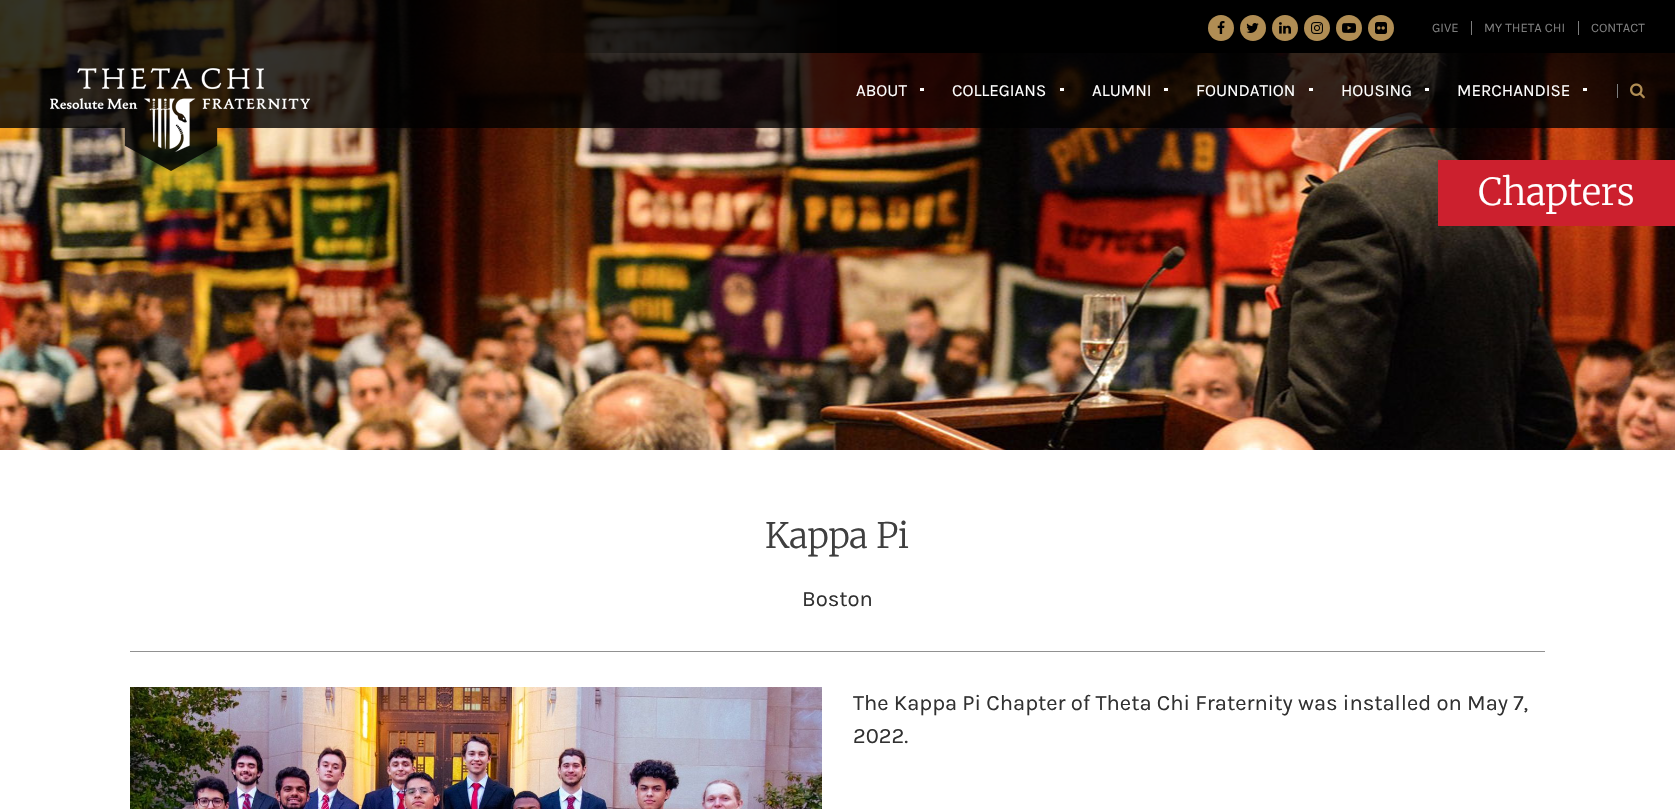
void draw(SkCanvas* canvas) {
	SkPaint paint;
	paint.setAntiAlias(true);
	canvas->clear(0xffffffff);
	canvas->drawImageRect(SkImages::DeferredFromEncodedData(SkData::MakeFromFileName("img10.png")), SkRect::MakeXYWH(0, 0, 1675, 450), SkSamplingOptions());
	paint.setColor(0xcc000000);
	canvas->drawRect(SkRect::MakeXYWH(0, 0, 1675, 128), paint);
	{
		const SkColor colors[] = {0x00000000, 0x00000000, 0xff000000, 0xff000000};
		const float stops[] = {0, 0.3, 0.5, 1};
		const SkPoint ends[] = {{0, 27}, {1675, 26}};
		paint.setShader(SkGradientShader::MakeLinear(ends, colors, stops, 4, SkTileMode::kClamp));
		paint.setAlpha(255);
	}
	canvas->drawRect(SkRect::MakeXYWH(536, 0, 1139, 53), paint);
	paint.setShader(nullptr);
	paint.setColor(0xffb08d54);
	canvas->drawCircle(1221, 28, 13, paint);
	canvas->drawImageRect(SkImages::DeferredFromEncodedData(SkData::MakeFromFileName("img1.png")), SkRect::MakeXYWH(1217, 21, 8, 13), SkSamplingOptions());
	canvas->drawCircle(1253, 28, 13, paint);
	canvas->drawImageRect(SkImages::DeferredFromEncodedData(SkData::MakeFromFileName("img2.png")), SkRect::MakeXYWH(1246, 23, 13, 10), SkSamplingOptions());
	canvas->drawCircle(1285, 28, 13, paint);
	canvas->drawImageRect(SkImages::DeferredFromEncodedData(SkData::MakeFromFileName("img3.png")), SkRect::MakeXYWH(1279, 22, 12, 12), SkSamplingOptions());
	canvas->drawCircle(1317, 28, 13, paint);
	canvas->drawImageRect(SkImages::DeferredFromEncodedData(SkData::MakeFromFileName("img4.png")), SkRect::MakeXYWH(1311, 22, 12, 12), SkSamplingOptions());
	canvas->drawCircle(1349, 28, 13, paint);
	canvas->drawImageRect(SkImages::DeferredFromEncodedData(SkData::MakeFromFileName("img5.png")), SkRect::MakeXYWH(1342, 23, 14, 10), SkSamplingOptions());
	canvas->drawCircle(1381, 28, 13, paint);
	canvas->drawImageRect(SkImages::DeferredFromEncodedData(SkData::MakeFromFileName("img6.png")), SkRect::MakeXYWH(1375, 22, 12, 12), SkSamplingOptions());
	SkFont f1(fontMgr->matchFamilyStyle("Karla", SkFontStyle::Normal()), 13);
	f1.setSubpixel(true);
	paint.setColor(0xff7d7d7d);
	canvas->drawString("GIVE", 1432, 32, f1, paint);
	canvas->drawRect(SkRect::MakeXYWH(1471, 21, 1, 14), paint);
	canvas->drawString("MY THETA CHI", 1484, 32, f1, paint);
	canvas->drawRect(SkRect::MakeXYWH(1578, 21, 1, 14), paint);
	canvas->drawString("CONTACT", 1591, 32, f1, paint);
	canvas->drawImageRect(SkImages::DeferredFromEncodedData(SkData::MakeFromFileName("img8.png")), SkRect::MakeXYWH(124, 128, 94, 43), SkSamplingOptions());
	canvas->drawImageRect(SkImages::DeferredFromEncodedData(SkData::MakeFromFileName("img7.png")), SkRect::MakeXYWH(50, 68, 260, 84), SkSamplingOptions());
	SkFont f2(fontMgr->matchFamilyStyle("Karla", SkFontStyle::Normal()), 17);
	f2.setSubpixel(true);
	paint.setColor(0xffffffff);
	canvas->drawString("ABOUT", 856, 96, f2, paint);
	paint.setColor(0xfffdfdfc);
	canvas->drawRect(SkRect::MakeXYWH(920, 88, 4, 3), paint);
	paint.setColor(0xffffffff);
	canvas->drawString("COLLEGIANS", 952, 96, f2, paint);
	paint.setColor(0xfcffffff);
	canvas->drawRect(SkRect::MakeXYWH(1060, 88, 4, 3), paint);
	paint.setColor(0xffffffff);
	canvas->drawString("ALUMNI", 1092, 96, f2, paint);
	paint.setColor(0xfcffffff);
	canvas->drawRect(SkRect::MakeXYWH(1164, 88, 4, 3), paint);
	paint.setColor(0xffffffff);
	canvas->drawString("FOUNDATION", 1196, 96, f2, paint);
	paint.setColor(0xfcffffff);
	canvas->drawRect(SkRect::MakeXYWH(1309, 88, 4, 3), paint);
	paint.setColor(0xffffffff);
	canvas->drawString("HOUSING", 1341, 96, f2, paint);
	paint.setColor(0xfcffffff);
	canvas->drawRect(SkRect::MakeXYWH(1425, 88, 4, 3), paint);
	paint.setColor(0xffffffff);
	canvas->drawString("MERCHANDISE", 1457, 96, f2, paint);
	paint.setColor(0xfffdfdfc);
	canvas->drawRect(SkRect::MakeXYWH(1583, 88, 4, 3), paint);
	paint.setColor(0xff7d7d7d);
	canvas->drawRect(SkRect::MakeXYWH(1617, 84, 1, 14), paint);
	canvas->drawImageRect(SkImages::DeferredFromEncodedData(SkData::MakeFromFileName("img9.png")), SkRect::MakeXYWH(1630, 83, 15, 16), SkSamplingOptions());
	paint.setColor(0xffcc202e);
	canvas->drawRect(SkRect::MakeXYWH(1438, 160, 237, 66), paint);
	SkFont f3(fontMgr->matchFamilyStyle("Merriweather", SkFontStyle(300, SkFontStyle::kNormal_Width, SkFontStyle::kUpright_Slant)), 37);
	f3.setSubpixel(true);
	paint.setColor(0xffffffff);
	canvas->drawString("Chapters", 1478, 205, f3, paint);
	paint.setColor(0xff919191);
	canvas->drawRect(SkRect::MakeXYWH(130, 651, 1415, 1), paint);
	SkFont f4(fontMgr->matchFamilyStyle("Merriweather", SkFontStyle(300, SkFontStyle::kNormal_Width, SkFontStyle::kUpright_Slant)), 35);
	f4.setSubpixel(true);
	paint.setColor(0xff3f3f3f);
	canvas->drawString("Kappa Pi", 765, 548, f4, paint);
	SkFont f5(fontMgr->matchFamilyStyle("Karla", SkFontStyle::Normal()), 22);
	f5.setSubpixel(true);
	paint.setColor(0xff313131);
	canvas->drawString("Boston", 802, 606, f5, paint);
	canvas->drawImageRect(SkImages::DeferredFromEncodedData(SkData::MakeFromFileName("img11.png")), SkRect::MakeXYWH(130, 687, 692, 122), SkSamplingOptions());
	canvas->drawString("The Kappa Pi Chapter of Theta Chi Fraternity was installed on May 7,", 853, 710, f5, paint);
	canvas->drawString("2022.", 853, 743, f5, paint);
}
